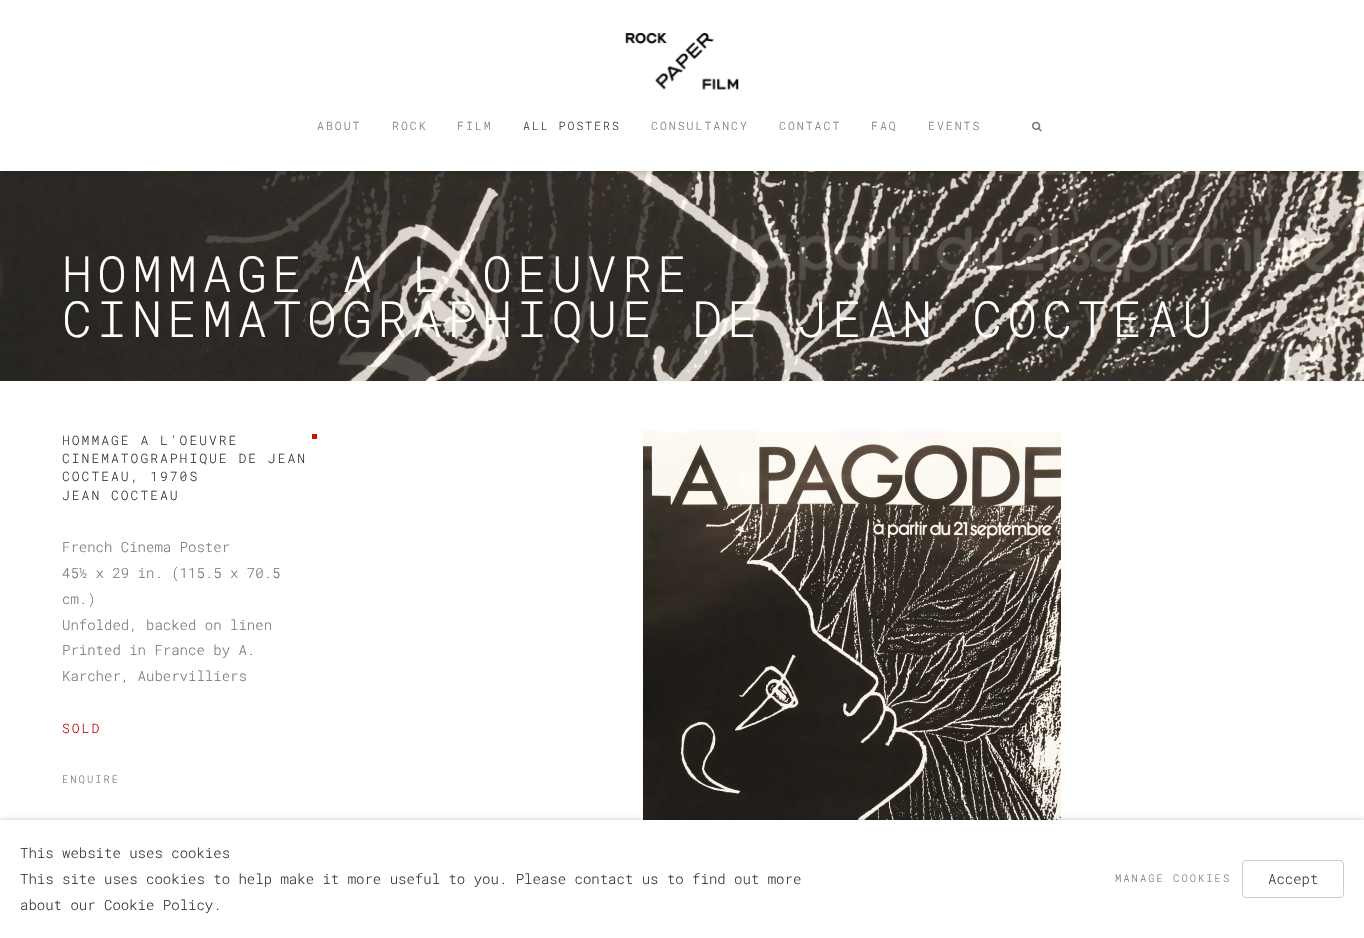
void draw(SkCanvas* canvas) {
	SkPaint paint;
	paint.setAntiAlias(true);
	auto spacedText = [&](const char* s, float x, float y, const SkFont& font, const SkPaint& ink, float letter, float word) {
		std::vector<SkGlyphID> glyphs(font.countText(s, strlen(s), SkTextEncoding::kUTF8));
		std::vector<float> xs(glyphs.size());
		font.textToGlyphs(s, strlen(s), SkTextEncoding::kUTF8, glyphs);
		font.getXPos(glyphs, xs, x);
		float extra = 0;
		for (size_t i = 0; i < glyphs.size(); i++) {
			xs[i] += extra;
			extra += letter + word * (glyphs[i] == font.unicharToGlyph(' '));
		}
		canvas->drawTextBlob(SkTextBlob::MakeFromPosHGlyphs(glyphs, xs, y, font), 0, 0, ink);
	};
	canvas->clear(0xffffffff);
	canvas->drawImageRect(SkImages::DeferredFromEncodedData(SkData::MakeFromFileName("img4.png")), SkRect::MakeXYWH(0, 171, 1364, 210), SkSamplingOptions());
	canvas->drawImageRect(SkImages::DeferredFromEncodedData(SkData::MakeFromFileName("img5.png")), SkRect::MakeXYWH(0, 171, 1364, 210), SkSamplingOptions());
	paint.setColor(0x4d000000);
	paint.setMaskFilter(SkMaskFilter::MakeBlur(kNormal_SkBlurStyle, 4));
	canvas->drawRect(SkRect::MakeXYWH(0, 0, 1364, 171), paint);
	paint.setMaskFilter(nullptr);
	paint.setColor(0xffffffff);
	canvas->drawRect(SkRect::MakeXYWH(0, 0, 1364, 171), paint);
	canvas->drawImageRect(SkImages::DeferredFromEncodedData(SkData::MakeFromFileName("img1.png")), SkRect::MakeXYWH(625, 32, 114, 58), SkSamplingOptions());
	SkFont f1(fontMgr->matchFamilyStyle("Roboto Mono", SkFontStyle(300, SkFontStyle::kNormal_Width, SkFontStyle::kUpright_Slant)), 11.5);
	f1.setSubpixel(true);
	paint.setColor(0xff757575);
	spacedText("ABOUT", 317, 130, f1, paint, 2, 0);
	spacedText("ROCK", 392, 130, f1, paint, 2, 0);
	spacedText("FILM", 457, 130, f1, paint, 2, 0);
	paint.setColor(0xff303030);
	spacedText("ALL POSTERS", 523, 130, f1, paint, 2, 0);
	paint.setColor(0xff757575);
	spacedText("CONSULTANCY", 651, 130, f1, paint, 2, 0);
	spacedText("CONTACT", 779, 130, f1, paint, 2, 0);
	spacedText("FAQ", 871, 130, f1, paint, 2, 0);
	spacedText("EVENTS", 928, 130, f1, paint, 2, 0);
	canvas->drawImageRect(SkImages::DeferredFromEncodedData(SkData::MakeFromFileName("img2.png")), SkRect::MakeXYWH(1032, 121, 10, 11), SkSamplingOptions());
	SkFont f2(fontMgr->matchFamilyStyle("Roboto Mono", SkFontStyle(300, SkFontStyle::kNormal_Width, SkFontStyle::kUpright_Slant)), 50);
	f2.setSubpixel(true);
	paint.setColor(0xffffffff);
	spacedText("HOMMAGE A L'OEUVRE", 62, 292, f2, paint, 5, 0);
	spacedText("CINEMATOGRAPHIQUE DE JEAN COCTEAU", 62, 337, f2, paint, 5, 0);
	SkFont f3(fontMgr->matchFamilyStyle("Roboto Mono", SkFontStyle(300, SkFontStyle::kNormal_Width, SkFontStyle::kUpright_Slant)), 13);
	f3.setSubpixel(true);
	paint.setColor(0xff303030);
	spacedText("HOMMAGE A L'OEUVRE", 62, 445, f3, paint, 2, 0);
	spacedText("CINEMATOGRAPHIQUE DE JEAN", 62, 463, f3, paint, 2, 0);
	spacedText("COCTEAU, 1970S", 62, 481, f3, paint, 2, 0);
	spacedText("JEAN COCTEAU", 62, 500, f3, paint, 2, 0);
	SkFont f4(fontMgr->matchFamilyStyle("Roboto Mono", SkFontStyle(300, SkFontStyle::kNormal_Width, SkFontStyle::kUpright_Slant)), 14);
	f4.setSubpixel(true);
	paint.setColor(0xff757575);
	canvas->drawString("French Cinema Poster", 62, 552, f4, paint);
	canvas->drawString("45½ x 29 in. (115.5 x 70.5", 62, 578, f4, paint);
	canvas->drawString("cm.)", 62, 604, f4, paint);
	canvas->drawString("Unfolded, backed on linen", 62, 630, f4, paint);
	canvas->drawString("Printed in France by A.", 62, 655, f4, paint);
	canvas->drawString("Karcher, Aubervilliers", 62, 681, f4, paint);
	paint.setColor(0xffcc0000);
	spacedText("SOLD", 62, 733, f3, paint, 2, 0);
	SkFont f5(fontMgr->matchFamilyStyle("Roboto Mono", SkFontStyle(300, SkFontStyle::kNormal_Width, SkFontStyle::kUpright_Slant)), 10.5);
	f5.setSubpixel(true);
	paint.setColor(0xff757575);
	spacedText("ENQUIRE", 62, 783, f5, paint, 2, 0);
	paint.setColor(0xffce0d00);
	canvas->drawRect(SkRect::MakeXYWH(312, 434, 5, 5), paint);
	canvas->drawImageRect(SkImages::DeferredFromEncodedData(SkData::MakeFromFileName("img3.png")), SkRect::MakeXYWH(643, 431, 418, 389), SkSamplingOptions());
	paint.setColor(0x3b000000);
	paint.setMaskFilter(SkMaskFilter::MakeBlur(kNormal_SkBlurStyle, 2.5));
	canvas->drawRect(SkRect::MakeXYWH(0, 820, 1364, 118), paint);
	paint.setMaskFilter(nullptr);
	paint.setColor(0xffffffff);
	canvas->drawRect(SkRect::MakeXYWH(0, 820, 1364, 118), paint);
	paint.setColor(0xff303030);
	canvas->drawString("This website uses cookies", 20, 858, f4, paint);
	canvas->drawString("This site uses cookies to help make it more useful to you. Please contact us to find out more", 20, 884, f4, paint);
	canvas->drawString("about our Cookie Policy.", 20, 910, f4, paint);
	paint.setColor(0xff757575);
	spacedText("MANAGE COOKIES", 1115, 882, f5, paint, 2, 0);
	paint.setStroke(true);
	paint.setStrokeWidth(1);
	paint.setColor(0xffcccccc);
	canvas->drawRoundRect(SkRect::MakeXYWH(1242.5, 860.5, 101, 37), 3.5, 3.5, paint);
	paint.setStroke(false);
	paint.setColor(0xff303030);
	canvas->drawString("Accept", 1268, 884, f4, paint);
}
